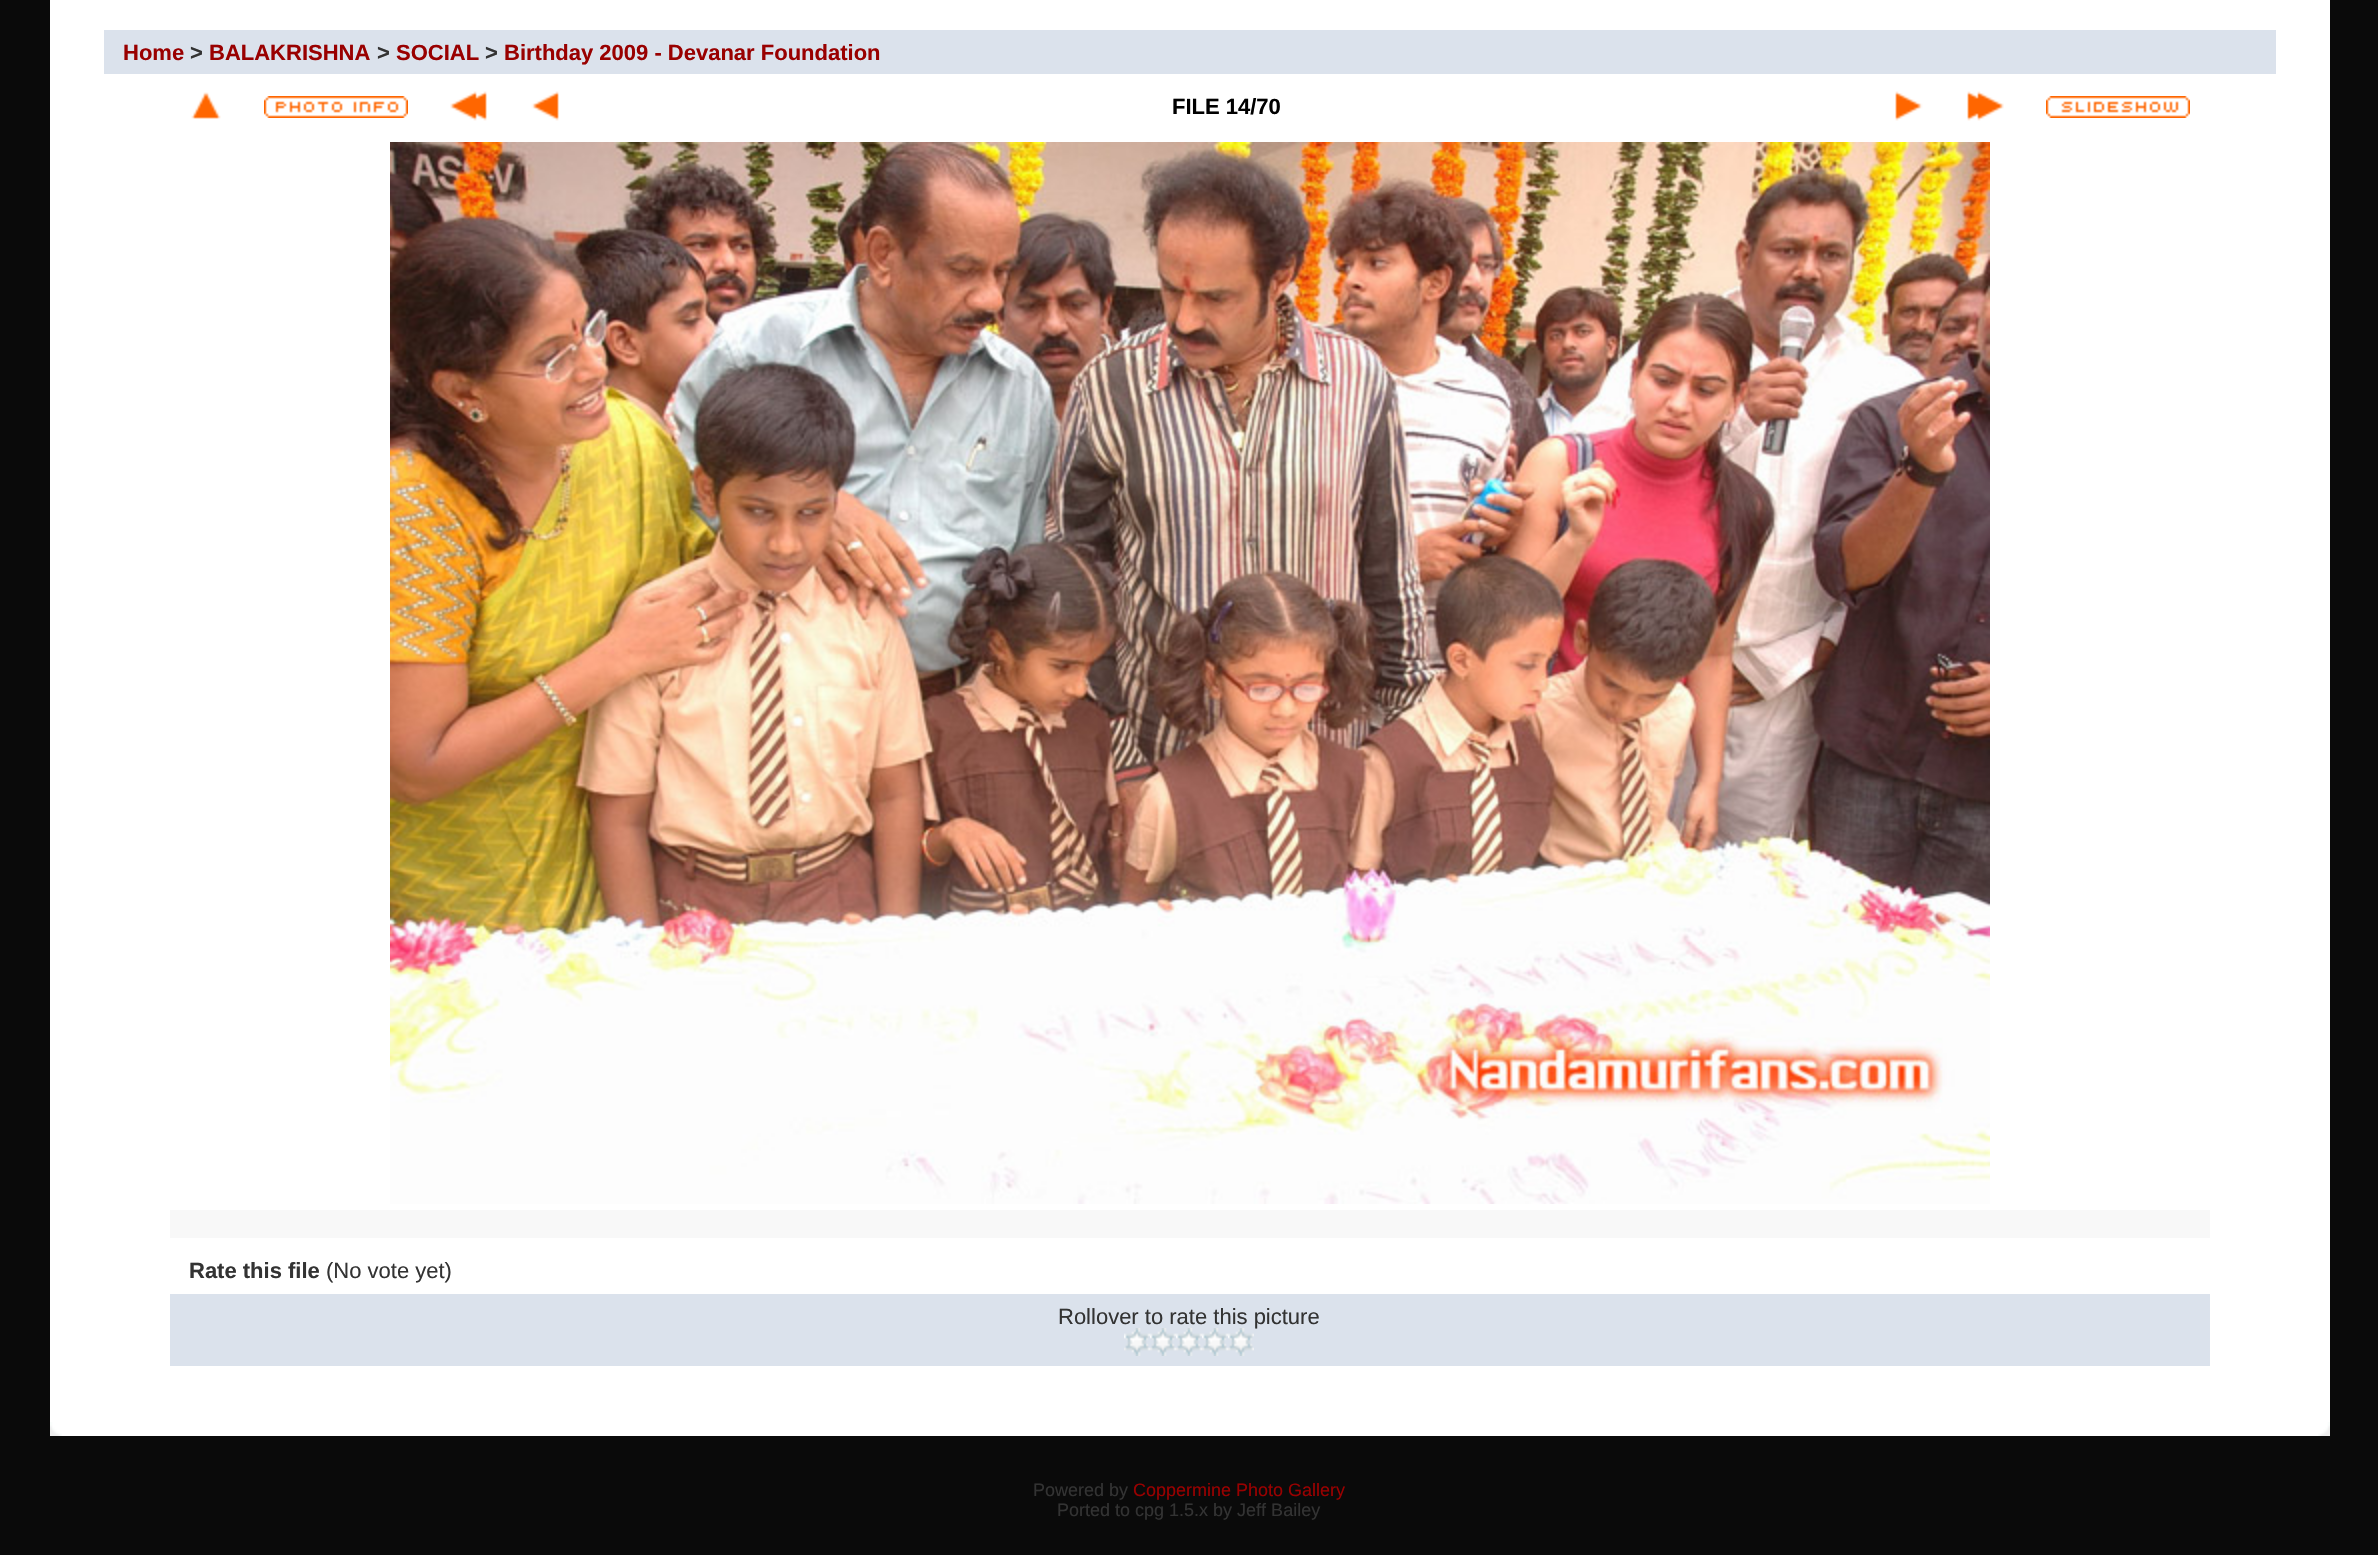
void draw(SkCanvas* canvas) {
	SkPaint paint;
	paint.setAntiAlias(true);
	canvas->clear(0xff0a0a0a);
	paint.setColor(0xffffffff);
	canvas->drawRect(SkRect::MakeXYWH(50, 0, 2280, 1422), paint);
	paint.setColor(0xffdbe2ec);
	canvas->drawRect(SkRect::MakeXYWH(104, 30, 2172, 44), paint);
	SkFont f1(fontMgr->matchFamilyStyle("Liberation Sans", SkFontStyle::Bold()), 22);
	f1.setSubpixel(true);
	paint.setColor(0xff990000);
	canvas->drawString("Home", 123, 60, f1, paint);
	paint.setColor(0xff333333);
	canvas->drawString(">", 190, 60, f1, paint);
	paint.setColor(0xff990000);
	canvas->drawString("BALAKRISHNA", 209, 60, f1, paint);
	paint.setColor(0xff333333);
	canvas->drawString(">", 377, 60, f1, paint);
	paint.setColor(0xff990000);
	canvas->drawString("SOCIAL", 396, 60, f1, paint);
	paint.setColor(0xff333333);
	canvas->drawString(">", 485, 60, f1, paint);
	paint.setColor(0xff990000);
	canvas->drawString("Birthday 2009 - Devanar Foundation", 504, 60, f1, paint);
	canvas->drawImageRect(SkImages::DeferredFromEncodedData(SkData::MakeFromFileName("img1.png")), SkRect::MakeXYWH(191, 92, 30, 27), SkSamplingOptions());
	canvas->drawImageRect(SkImages::DeferredFromEncodedData(SkData::MakeFromFileName("img2.png")), SkRect::MakeXYWH(264, 96, 144, 22), SkSamplingOptions());
	canvas->drawImageRect(SkImages::DeferredFromEncodedData(SkData::MakeFromFileName("img3.png")), SkRect::MakeXYWH(450, 91, 37, 30), SkSamplingOptions());
	canvas->drawImageRect(SkImages::DeferredFromEncodedData(SkData::MakeFromFileName("img4.png")), SkRect::MakeXYWH(531, 91, 28, 30), SkSamplingOptions());
	paint.setColor(0xff000000);
	canvas->drawString("FILE 14/70", 1172, 114, f1, paint);
	canvas->drawImageRect(SkImages::DeferredFromEncodedData(SkData::MakeFromFileName("img5.png")), SkRect::MakeXYWH(1895, 91, 28, 30), SkSamplingOptions());
	canvas->drawImageRect(SkImages::DeferredFromEncodedData(SkData::MakeFromFileName("img6.png")), SkRect::MakeXYWH(1967, 91, 37, 30), SkSamplingOptions());
	canvas->drawImageRect(SkImages::DeferredFromEncodedData(SkData::MakeFromFileName("img7.png")), SkRect::MakeXYWH(2046, 96, 144, 22), SkSamplingOptions());
	canvas->drawImageRect(SkImages::DeferredFromEncodedData(SkData::MakeFromFileName("img8.png")), SkRect::MakeXYWH(390, 142, 1600, 1062), SkSamplingOptions());
	paint.setColor(0xfff8f8f8);
	canvas->drawRect(SkRect::MakeXYWH(170, 1210, 2040, 28), paint);
	paint.setColor(0xff333333);
	canvas->drawString("Rate this file", 189, 1278, f1, paint);
	SkFont f2(fontMgr->matchFamilyStyle("Liberation Sans", SkFontStyle::Normal()), 22);
	f2.setSubpixel(true);
	canvas->drawString("(No vote yet)", 326, 1278, f2, paint);
	paint.setColor(0xffdbe2ec);
	canvas->drawRect(SkRect::MakeXYWH(170, 1294, 2040, 72), paint);
	paint.setColor(0xff333333);
	canvas->drawString("Rollover to rate this picture", 1058, 1324, f2, paint);
	canvas->drawImageRect(SkImages::DeferredFromEncodedData(SkData::MakeFromFileName("img9.png")), SkRect::MakeXYWH(1124, 1328, 26, 28), SkSamplingOptions());
	canvas->drawImageRect(SkImages::DeferredFromEncodedData(SkData::MakeFromFileName("img9.png")), SkRect::MakeXYWH(1150, 1328, 26, 28), SkSamplingOptions());
	canvas->drawImageRect(SkImages::DeferredFromEncodedData(SkData::MakeFromFileName("img9.png")), SkRect::MakeXYWH(1176, 1328, 26, 28), SkSamplingOptions());
	canvas->drawImageRect(SkImages::DeferredFromEncodedData(SkData::MakeFromFileName("img9.png")), SkRect::MakeXYWH(1202, 1328, 26, 28), SkSamplingOptions());
	canvas->drawImageRect(SkImages::DeferredFromEncodedData(SkData::MakeFromFileName("img9.png")), SkRect::MakeXYWH(1228, 1328, 26, 28), SkSamplingOptions());
	paint.setColor(0xffffffff);
	canvas->drawRect(SkRect::MakeXYWH(62, 1422, 2256, 14), paint);
	canvas->drawImageRect(SkImages::DeferredFromEncodedData(SkData::MakeFromFileName("img10.png")), SkRect::MakeXYWH(50, 1422, 12, 14), SkSamplingOptions());
	canvas->drawImageRect(SkImages::DeferredFromEncodedData(SkData::MakeFromFileName("img11.png")), SkRect::MakeXYWH(2318, 1422, 12, 14), SkSamplingOptions());
	SkFont f3(fontMgr->matchFamilyStyle("Liberation Sans", SkFontStyle::Normal()), 18);
	f3.setSubpixel(true);
	paint.setColor(0xff333333);
	canvas->drawString("Powered by", 1033, 1496, f3, paint);
	paint.setColor(0xff990000);
	canvas->drawString("Coppermine Photo Gallery", 1133, 1496, f3, paint);
	paint.setColor(0xff333333);
	canvas->drawString("Ported to cpg 1.5.x by Jeff Bailey", 1057, 1516, f3, paint);
}
